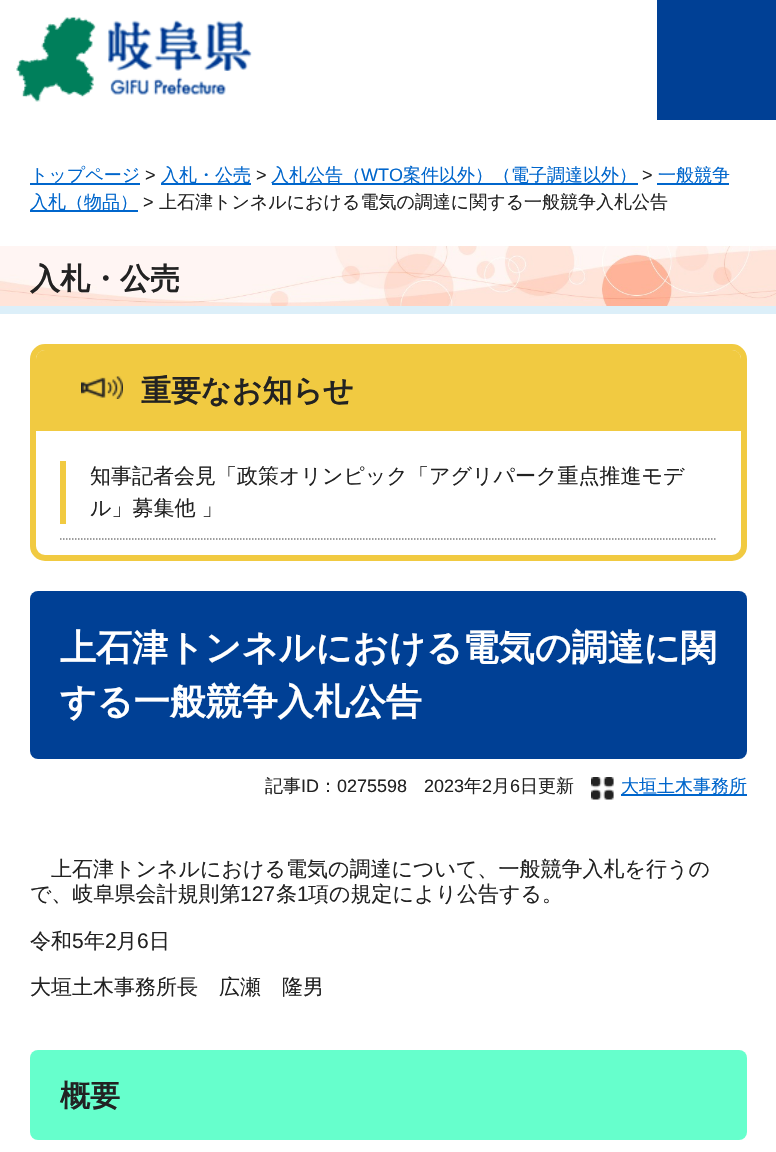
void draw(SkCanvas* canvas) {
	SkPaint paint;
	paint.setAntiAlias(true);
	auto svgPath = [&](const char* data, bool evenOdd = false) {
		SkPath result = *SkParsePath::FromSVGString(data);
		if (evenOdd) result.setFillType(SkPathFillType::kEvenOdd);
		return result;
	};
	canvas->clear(0xffffffff);
	canvas->drawImageRect(SkImages::DeferredFromEncodedData(SkData::MakeFromFileName("img1.png")), SkRect::MakeXYWH(16, 16, 236, 86), SkSamplingOptions());
	paint.setColor(0xff004095);
	canvas->drawRect(SkRect::MakeXYWH(657, 0, 119, 120), paint);
	paint.setColor(0xff0066cc);
	canvas->drawRect(SkRect::MakeXYWH(30, 183, 110, 2), paint);
	SkFont f1(fontMgr->matchFamilyStyle("WenQuanYi Zen Hei", SkFontStyle(500, SkFontStyle::kNormal_Width, SkFontStyle::kUpright_Slant)), 18);
	f1.setSubpixel(true);
	canvas->drawString("トップページ", 30, 181, f1, paint);
	SkFont f2(fontMgr->matchFamilyStyle("Liberation Sans", SkFontStyle::Normal()), 18);
	f2.setSubpixel(true);
	paint.setColor(0xff222222);
	canvas->drawString(">", 145, 181, f2, paint);
	paint.setColor(0xff0066cc);
	canvas->drawRect(SkRect::MakeXYWH(161, 183, 90, 2), paint);
	canvas->drawString("入札・公売", 161, 181, f1, paint);
	paint.setColor(0xff222222);
	canvas->drawString(">", 256, 181, f2, paint);
	paint.setColor(0xff0066cc);
	canvas->drawRect(SkRect::MakeXYWH(272, 183, 366, 2), paint);
	canvas->drawString("入札公告（", 271, 181, f1, paint);
	canvas->drawString("WTO", 361, 181, f2, paint);
	canvas->drawString("案件以外）（電子調達以外）", 403, 181, f1, paint);
	paint.setColor(0xff222222);
	canvas->drawString(">", 642, 181, f2, paint);
	paint.setColor(0xff0066cc);
	canvas->drawRect(SkRect::MakeXYWH(657, 183, 72, 2), paint);
	canvas->drawString("一般競争", 658, 181, f1, paint);
	canvas->drawRect(SkRect::MakeXYWH(30, 210, 108, 2), paint);
	canvas->drawString("入札（物品）", 30, 208, f1, paint);
	paint.setColor(0xff222222);
	canvas->drawString(">", 143, 208, f2, paint);
	canvas->drawString("上石津トンネルにおける電気の調達に関する一般競争入札公告", 159, 208, f1, paint);
	paint.setColor(0xffdceff9);
	canvas->drawRect(SkRect::MakeXYWH(0, 306, 776, 8), paint);
	canvas->drawImageRect(SkImages::DeferredFromEncodedData(SkData::MakeFromFileName("img2.png")), SkRect::MakeXYWH(0, 246, 776, 60), SkSamplingOptions());
	SkFont f3(fontMgr->matchFamilyStyle("WenQuanYi Zen Hei", SkFontStyle::Bold()), 30);
	f3.setSubpixel(true);
	paint.setColor(0xff222222);
	canvas->drawString("入札・公売", 30, 289, f3, paint);
	paint.setStroke(true);
	paint.setStrokeWidth(6);
	paint.setColor(0xfff1ca41);
	canvas->drawRoundRect(SkRect::MakeXYWH(33, 347, 711, 211), 12, 12, paint);
	paint.setStroke(false);
	canvas->drawPath(svgPath("M45 350H732C737 350 741 354 741 359V431H36V359C36 354 40 350 45 350Z"), paint);
	canvas->drawImageRect(SkImages::DeferredFromEncodedData(SkData::MakeFromFileName("img3.png")), SkRect::MakeXYWH(81, 376, 42, 23), SkSamplingOptions());
	paint.setColor(0xff222222);
	canvas->drawString("重要なお知らせ", 141, 401, f3, paint);
	paint.setStroke(true);
	paint.setStrokeWidth(1.5);
	paint.setColor(0xff7d7d7d);
	paint.setPathEffect(SkDashPathEffect::Make({{1.5f, 1.5f}}, 0));
	canvas->drawPath(svgPath("M60 539H717"), paint);
	paint.setPathEffect(nullptr);
	paint.setStroke(false);
	paint.setColor(0xfff1ca41);
	canvas->drawRect(SkRect::MakeXYWH(60, 461, 6, 63), paint);
	SkFont f4(fontMgr->matchFamilyStyle("WenQuanYi Zen Hei", SkFontStyle(500, SkFontStyle::kNormal_Width, SkFontStyle::kUpright_Slant)), 21);
	f4.setSubpixel(true);
	paint.setColor(0xff222222);
	canvas->drawString("知事記者会見「政策オリンピック「アグリパーク重点推進モデ", 90, 483, f4, paint);
	canvas->drawString("ル」募集他 」", 90, 515, f4, paint);
	paint.setColor(0xff004095);
	canvas->drawRoundRect(SkRect::MakeXYWH(30, 591, 717, 168), 8, 8, paint);
	SkFont f5(fontMgr->matchFamilyStyle("WenQuanYi Zen Hei", SkFontStyle::Bold()), 36);
	f5.setSubpixel(true);
	paint.setColor(0xffffffff);
	canvas->drawString("上石津トンネルにおける電気の調達に関", 60, 660, f5, paint);
	canvas->drawString("する一般競争入札公告", 60, 714, f5, paint);
	paint.setColor(0xff222222);
	canvas->drawString("記事", 265, 792, f1, paint);
	canvas->drawString("ID", 301, 792, f2, paint);
	canvas->drawString("：", 319, 792, f1, paint);
	canvas->drawString("0275598", 337, 792, f2, paint);
	canvas->drawString("2023", 424, 792, f2, paint);
	canvas->drawString("年", 464, 792, f1, paint);
	canvas->drawString("2", 482, 792, f2, paint);
	canvas->drawString("月", 492, 792, f1, paint);
	canvas->drawString("6", 510, 792, f2, paint);
	canvas->drawString("日更新", 520, 792, f1, paint);
	canvas->drawImageRect(SkImages::DeferredFromEncodedData(SkData::MakeFromFileName("img4.png")), SkRect::MakeXYWH(591, 777, 23, 23), SkSamplingOptions());
	paint.setColor(0xff0066cc);
	canvas->drawRect(SkRect::MakeXYWH(621, 794, 126, 2), paint);
	canvas->drawString("大垣土木事務所", 621, 792, f1, paint);
	paint.setColor(0xff222222);
	canvas->drawString("上石津トンネルにおける電気の調達について、一般競争入札を行うの", 51, 876, f4, paint);
	canvas->drawString("で、岐阜県会計規則第", 30, 901, f4, paint);
	SkFont f6(fontMgr->matchFamilyStyle("Liberation Sans", SkFontStyle::Normal()), 21);
	f6.setSubpixel(true);
	canvas->drawString("127", 240, 901, f6, paint);
	canvas->drawString("条", 276, 901, f4, paint);
	canvas->drawString("1", 297, 901, f6, paint);
	canvas->drawString("項の規定により公告する。", 308, 901, f4, paint);
	canvas->drawString("令和", 30, 948, f4, paint);
	canvas->drawString("5", 72, 948, f6, paint);
	canvas->drawString("年", 84, 948, f4, paint);
	canvas->drawString("2", 105, 948, f6, paint);
	canvas->drawString("月", 116, 948, f4, paint);
	canvas->drawString("6", 137, 948, f6, paint);
	canvas->drawString("日", 149, 948, f4, paint);
	canvas->drawString("大垣土木事務所長　広瀬　隆男", 30, 994, f4, paint);
	paint.setColor(0xff66ffcc);
	canvas->drawRoundRect(SkRect::MakeXYWH(30, 1050, 717, 90), 8, 8, paint);
	paint.setColor(0xff222222);
	canvas->drawString("概要", 60, 1106, f3, paint);
}
